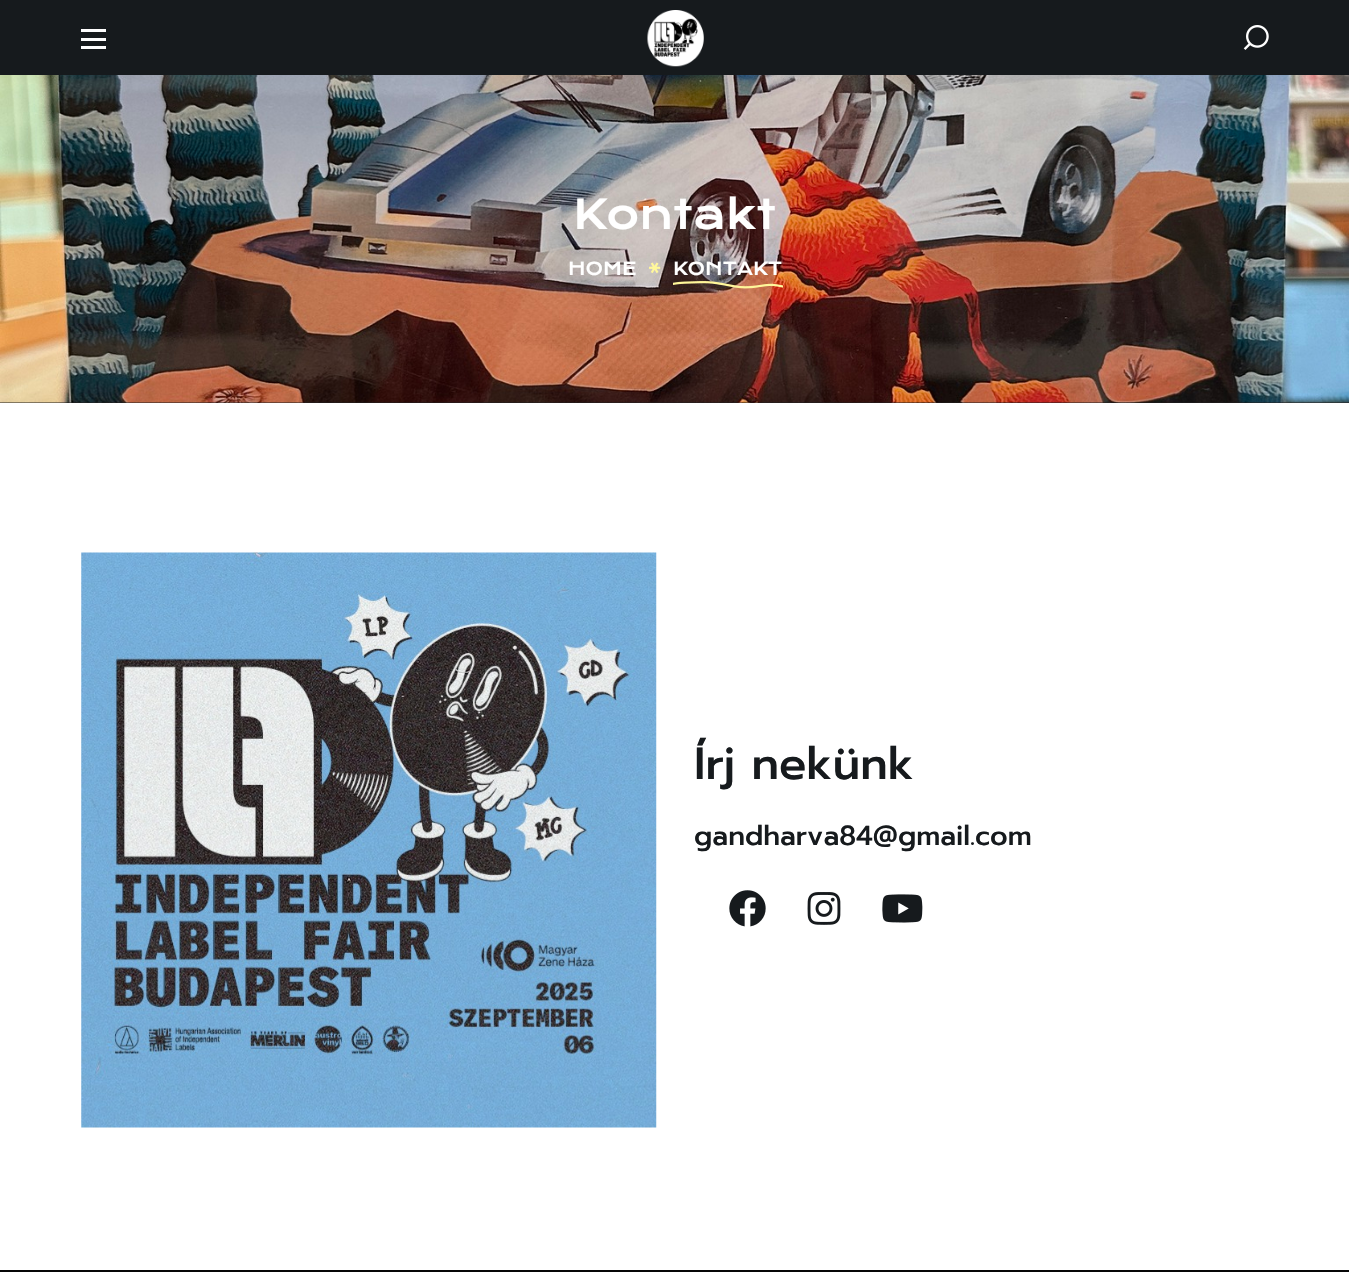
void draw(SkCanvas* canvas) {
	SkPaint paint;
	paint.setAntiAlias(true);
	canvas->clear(0xffffffff);
	paint.setColor(0xff161a1d);
	canvas->drawRect(SkRect::MakeXYWH(0, 0, 1349, 75), paint);
	paint.setColor(0xffffffff);
	canvas->drawRect(SkRect::MakeXYWH(81, 29, 25, 3), paint);
	canvas->drawRect(SkRect::MakeXYWH(81, 38, 25, 3), paint);
	canvas->drawRect(SkRect::MakeXYWH(81, 46, 25, 3), paint);
	canvas->drawImageRect(SkImages::DeferredFromEncodedData(SkData::MakeFromFileName("img1.png")), SkRect::MakeXYWH(647, 10, 57, 57), SkSamplingOptions());
	canvas->drawImageRect(SkImages::DeferredFromEncodedData(SkData::MakeFromFileName("img2.png")), SkRect::MakeXYWH(1243, 25, 26, 25), SkSamplingOptions());
	paint.setColor(0xff202020);
	canvas->drawRect(SkRect::MakeXYWH(0, 402, 1349, 1), paint);
	canvas->drawImageRect(SkImages::DeferredFromEncodedData(SkData::MakeFromFileName("img3.png")), SkRect::MakeXYWH(0, 75, 1349, 328), SkSamplingOptions());
	SkFont f1(fontMgr->matchFamilyStyle("Krona One", SkFontStyle::Normal()), 40);
	f1.setSubpixel(true);
	paint.setColor(0xffffffff);
	canvas->drawString("Kontakt", 573, 229, f1, paint);
	SkFont f2(fontMgr->matchFamilyStyle("Krona One", SkFontStyle::Normal()), 17.5);
	f2.setSubpixel(true);
	canvas->drawString("HOME", 568, 275, f2, paint);
	canvas->drawImageRect(SkImages::DeferredFromEncodedData(SkData::MakeFromFileName("img4.png")), SkRect::MakeXYWH(649, 262, 12, 11), SkSamplingOptions());
	canvas->drawString("KONTAKT", 673, 275, f2, paint);
	canvas->drawImageRect(SkImages::DeferredFromEncodedData(SkData::MakeFromFileName("img5.png")), SkRect::MakeXYWH(673, 281, 110, 8), SkSamplingOptions());
	canvas->drawImageRect(SkImages::DeferredFromEncodedData(SkData::MakeFromFileName("img6.png")), SkRect::MakeXYWH(81, 552, 576, 576), SkSamplingOptions());
	SkFont f3(fontMgr->matchFamilyStyle("Prompt", SkFontStyle(500, SkFontStyle::kNormal_Width, SkFontStyle::kUpright_Slant)), 45);
	f3.setSubpixel(true);
	paint.setColor(0xff161a1d);
	canvas->drawString("Írj nekünk", 694, 779, f3, paint);
	SkFont f4(fontMgr->matchFamilyStyle("Prompt", SkFontStyle(500, SkFontStyle::kNormal_Width, SkFontStyle::kUpright_Slant)), 27.5);
	f4.setSubpixel(true);
	canvas->drawString("gandharva84@gmail.com", 694, 845, f4, paint);
	canvas->drawImageRect(SkImages::DeferredFromEncodedData(SkData::MakeFromFileName("img7.png")), SkRect::MakeXYWH(729, 890, 37, 37), SkSamplingOptions());
	canvas->drawImageRect(SkImages::DeferredFromEncodedData(SkData::MakeFromFileName("img8.png")), SkRect::MakeXYWH(807, 892, 34, 33), SkSamplingOptions());
	canvas->drawImageRect(SkImages::DeferredFromEncodedData(SkData::MakeFromFileName("img9.png")), SkRect::MakeXYWH(882, 894, 41, 29), SkSamplingOptions());
	paint.setColor(0xff070707);
	canvas->drawRect(SkRect::MakeXYWH(0, 1270, 1349, 2), paint);
}
